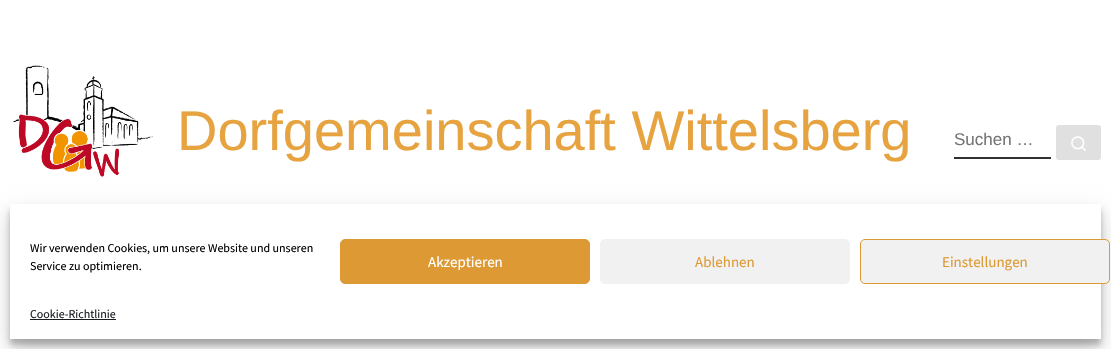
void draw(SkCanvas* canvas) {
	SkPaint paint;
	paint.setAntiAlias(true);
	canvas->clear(0xffffffff);
	canvas->drawImageRect(SkImages::DeferredFromEncodedData(SkData::MakeFromFileName("img1.png")), SkRect::MakeXYWH(13, 65, 140, 112), SkSamplingOptions());
	SkFont f1(fontMgr->matchFamilyStyle("Liberation Sans", SkFontStyle::Normal()), 56);
	f1.setSubpixel(true);
	paint.setColor(0xffe6a340);
	canvas->drawString("Dorfgemeinschaft Wittelsberg", 177, 150, f1, paint);
	paint.setColor(0xff313131);
	canvas->drawRect(SkRect::MakeXYWH(954, 157, 97, 2), paint);
	SkFont f2(fontMgr->matchFamilyStyle("Liberation Sans", SkFontStyle::Normal()), 17);
	f2.setSubpixel(true);
	paint.setColor(0xff757575);
	canvas->drawString("Suchen …", 954, 145, f2, paint);
	paint.setColor(0xffe0e0e0);
	canvas->drawRoundRect(SkRect::MakeXYWH(1057, 126, 43, 33), 2, 2, paint);
	paint.setStroke(true);
	paint.setStrokeWidth(2);
	canvas->drawRoundRect(SkRect::MakeXYWH(1057, 126, 43, 33), 2, 2, paint);
	canvas->drawImageRect(SkImages::DeferredFromEncodedData(SkData::MakeFromFileName("img2.png")), SkRect::MakeXYWH(1071, 136, 15, 15), SkSamplingOptions());
	paint.setStroke(false);
	paint.setColor(0x3b000000);
	paint.setMaskFilter(SkMaskFilter::MakeBlur(kNormal_SkBlurStyle, 3));
	canvas->drawRect(SkRect::MakeXYWH(10, 210, 1091, 135), paint);
	paint.setMaskFilter(nullptr);
	paint.setColor(0x30000000);
	paint.setMaskFilter(SkMaskFilter::MakeBlur(kNormal_SkBlurStyle, 10));
	canvas->drawRect(SkRect::MakeXYWH(10, 214, 1091, 135), paint);
	paint.setMaskFilter(nullptr);
	paint.setColor(0xffffffff);
	canvas->drawRect(SkRect::MakeXYWH(10, 204, 1091, 135), paint);
	SkFont f3(fontMgr->matchFamilyStyle("Source Sans Pro", SkFontStyle::Normal()), 12);
	f3.setSubpixel(true);
	paint.setColor(0xff000000);
	canvas->drawString("Wir verwenden Cookies, um unsere Website und unseren", 30, 252, f3, paint);
	canvas->drawString("Service zu optimieren.", 30, 270, f3, paint);
	paint.setColor(0xffdd9933);
	canvas->drawRoundRect(SkRect::MakeXYWH(340.5, 239.5, 249, 44), 4.5, 4.5, paint);
	paint.setStroke(true);
	paint.setStrokeWidth(1);
	canvas->drawRoundRect(SkRect::MakeXYWH(340.5, 239.5, 249, 44), 4.5, 4.5, paint);
	SkFont f4(fontMgr->matchFamilyStyle("Source Sans Pro", SkFontStyle::Normal()), 15);
	f4.setSubpixel(true);
	paint.setStroke(false);
	paint.setColor(0xffffffff);
	canvas->drawString("Akzeptieren", 428, 267, f4, paint);
	paint.setColor(0xfff1f1f1);
	canvas->drawRoundRect(SkRect::MakeXYWH(600.5, 239.5, 249, 44), 4.5, 4.5, paint);
	paint.setStroke(true);
	canvas->drawRoundRect(SkRect::MakeXYWH(600.5, 239.5, 249, 44), 4.5, 4.5, paint);
	paint.setStroke(false);
	paint.setColor(0xffdd9933);
	canvas->drawString("Ablehnen", 695, 267, f4, paint);
	paint.setColor(0xfff1f1f1);
	canvas->drawRoundRect(SkRect::MakeXYWH(860.5, 239.5, 249, 44), 4.5, 4.5, paint);
	paint.setStroke(true);
	paint.setColor(0xffdd9933);
	canvas->drawRoundRect(SkRect::MakeXYWH(860.5, 239.5, 249, 44), 4.5, 4.5, paint);
	paint.setStroke(false);
	canvas->drawString("Einstellungen", 942, 267, f4, paint);
	paint.setColor(0xff191e23);
	canvas->drawString("Cookie-Richtlinie", 30, 318, f3, paint);
	canvas->drawRect(SkRect::MakeXYWH(30, 319, 86, 1), paint);
}
